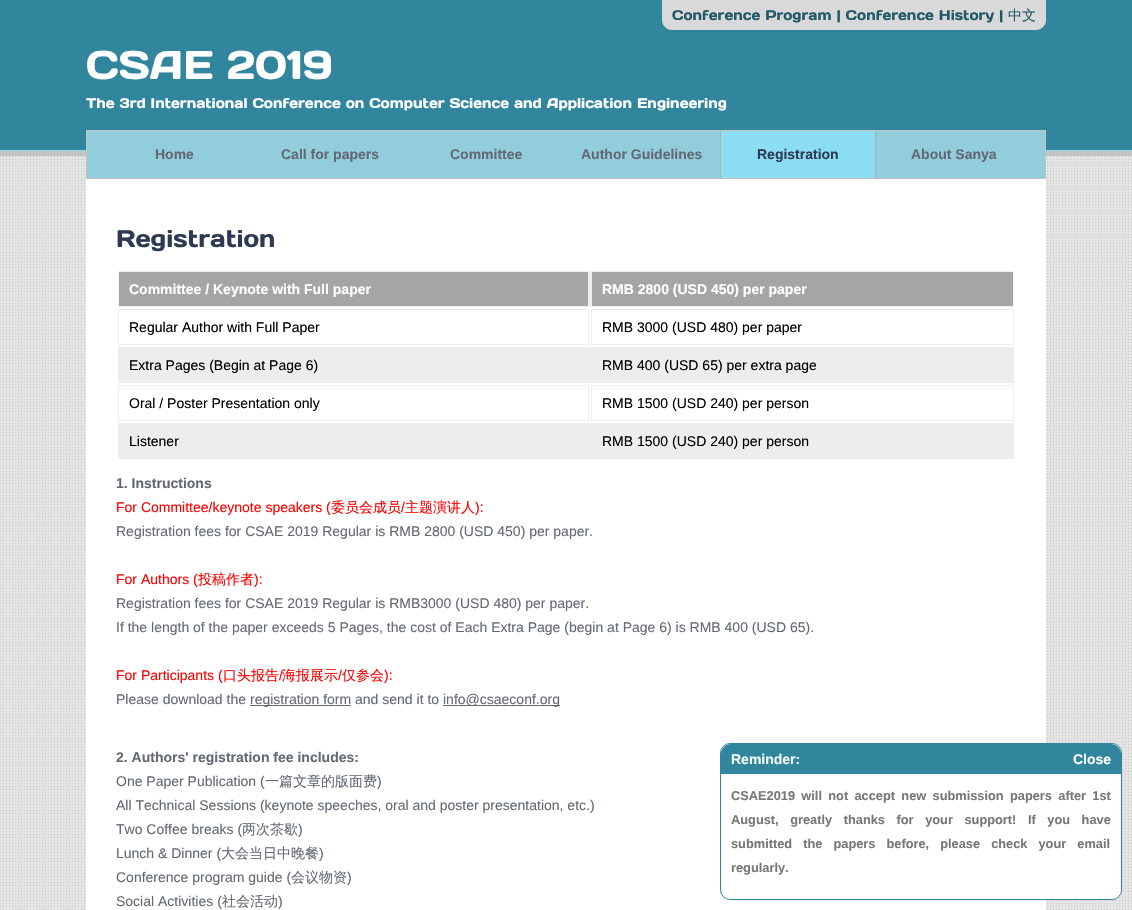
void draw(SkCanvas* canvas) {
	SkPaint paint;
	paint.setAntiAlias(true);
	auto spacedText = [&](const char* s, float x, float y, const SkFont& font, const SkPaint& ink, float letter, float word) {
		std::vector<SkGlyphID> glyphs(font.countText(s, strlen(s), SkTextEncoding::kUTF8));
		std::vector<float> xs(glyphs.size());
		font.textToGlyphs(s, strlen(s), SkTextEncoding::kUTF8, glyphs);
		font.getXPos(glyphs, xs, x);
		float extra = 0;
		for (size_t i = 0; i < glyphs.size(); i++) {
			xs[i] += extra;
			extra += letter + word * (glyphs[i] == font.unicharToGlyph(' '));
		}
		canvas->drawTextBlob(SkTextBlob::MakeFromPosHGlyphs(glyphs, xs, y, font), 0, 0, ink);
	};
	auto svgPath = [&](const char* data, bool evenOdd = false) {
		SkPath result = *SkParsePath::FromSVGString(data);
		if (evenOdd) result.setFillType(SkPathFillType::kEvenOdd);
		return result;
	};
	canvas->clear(0xffffffff);
	canvas->drawImageRect(SkImages::DeferredFromEncodedData(SkData::MakeFromFileName("img1.png")), SkRect::MakeXYWH(0, 156, 1132, 754), SkSamplingOptions());
	paint.setColor(0xffc3c3c3);
	canvas->drawRect(SkRect::MakeXYWH(0, 151, 1132, 5), paint);
	paint.setColor(0xff31859c);
	canvas->drawRect(SkRect::MakeXYWH(0, 0, 1132, 150), paint);
	paint.setColor(0xff8addf3);
	canvas->drawRect(SkRect::MakeXYWH(0, 150, 1132, 1), paint);
	paint.setColor(0xffd9d9d9);
	canvas->drawPath(svgPath("M662-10H1046V20C1046 25.5 1041.5 30 1036 30H672C666.5 30 662 25.5 662 20Z"), paint);
	SkFont f1(fontMgr->matchFamilyStyle("Days One", SkFontStyle::Normal()), 14);
	f1.setSubpixel(true);
	paint.setColor(0xff215868);
	canvas->drawString("Conference Program | Conference History |", 672, 20, f1, paint);
	SkFont f2(fontMgr->matchFamilyStyle("WenQuanYi Zen Hei", SkFontStyle(500, SkFontStyle::kNormal_Width, SkFontStyle::kUpright_Slant)), 14);
	f2.setSubpixel(true);
	canvas->drawString("中文", 1008, 20, f2, paint);
	SkFont f3(fontMgr->matchFamilyStyle("Days One", SkFontStyle::Normal()), 40);
	f3.setSubpixel(true);
	paint.setColor(0xffffffff);
	canvas->drawString("CSAE 2019", 86, 79, f3, paint);
	canvas->drawString("The 3rd International Conference on Computer Science and Application Engineering", 86, 108, f1, paint);
	canvas->drawImageRect(SkImages::DeferredFromEncodedData(SkData::MakeFromFileName("img2.png")), SkRect::MakeXYWH(86, 130, 960, 49), SkSamplingOptions());
	SkFont f4(fontMgr->matchFamilyStyle("Liberation Sans", SkFontStyle::Bold()), 14);
	f4.setSubpixel(true);
	paint.setColor(0xff636974);
	canvas->drawString("Home", 155, 159, f4, paint);
	canvas->drawString("Call for papers", 281, 159, f4, paint);
	canvas->drawString("Committee", 450, 159, f4, paint);
	canvas->drawString("Author Guidelines", 581, 159, f4, paint);
	paint.setColor(0xff8addf3);
	canvas->drawRect(SkRect::MakeXYWH(721, 131, 154, 47), paint);
	paint.setColor(0xffafafaf);
	canvas->drawRect(SkRect::MakeXYWH(875, 131, 1, 47), paint);
	canvas->drawRect(SkRect::MakeXYWH(720, 131, 1, 47), paint);
	paint.setColor(0xff2e3a54);
	canvas->drawString("Registration", 757, 159, f4, paint);
	paint.setColor(0xff636974);
	canvas->drawString("About Sanya", 911, 159, f4, paint);
	paint.setColor(0xffffffff);
	canvas->drawRect(SkRect::MakeXYWH(86, 179, 960, 731), paint);
	SkFont f5(fontMgr->matchFamilyStyle("Days One", SkFontStyle::Normal()), 24);
	f5.setSubpixel(true);
	paint.setColor(0xff2e3a54);
	canvas->drawString("Registration", 116, 247, f5, paint);
	paint.setColor(0xffededed);
	canvas->drawRect(SkRect::MakeXYWH(589, 271, 2, 36), paint);
	paint.setColor(0xffa5a5a5);
	canvas->drawRect(SkRect::MakeXYWH(118.5, 271.5, 470, 35), paint);
	paint.setStroke(true);
	paint.setStrokeWidth(1);
	paint.setColor(0xffeeeeee);
	canvas->drawRect(SkRect::MakeXYWH(118.5, 271.5, 470, 35), paint);
	paint.setStroke(false);
	paint.setColor(0xffffffff);
	canvas->drawString("Committee / Keynote with Full paper", 129, 294, f4, paint);
	paint.setColor(0xffa5a5a5);
	canvas->drawRect(SkRect::MakeXYWH(591.5, 271.5, 422, 35), paint);
	paint.setStroke(true);
	paint.setColor(0xffeeeeee);
	canvas->drawRect(SkRect::MakeXYWH(591.5, 271.5, 422, 35), paint);
	paint.setStroke(false);
	paint.setColor(0xffffffff);
	canvas->drawString("RMB 2800 (USD 450) per paper", 602, 294, f4, paint);
	paint.setStroke(true);
	paint.setColor(0xffeeeeee);
	canvas->drawRect(SkRect::MakeXYWH(118.5, 309.5, 470, 35), paint);
	SkFont f6(fontMgr->matchFamilyStyle("Liberation Sans", SkFontStyle::Normal()), 14);
	f6.setSubpixel(true);
	paint.setStroke(false);
	paint.setColor(0xff000000);
	canvas->drawString("Regular Author with Full Paper", 129, 332, f6, paint);
	paint.setStroke(true);
	paint.setColor(0xffeeeeee);
	canvas->drawRect(SkRect::MakeXYWH(591.5, 309.5, 422, 35), paint);
	paint.setStroke(false);
	paint.setColor(0xff000000);
	canvas->drawString("RMB 3000 (USD 480) per paper", 602, 332, f6, paint);
	paint.setColor(0xffededed);
	canvas->drawRect(SkRect::MakeXYWH(118, 347, 896, 36), paint);
	paint.setColor(0xff000000);
	canvas->drawString("Extra Pages (Begin at Page 6)", 129, 370, f6, paint);
	canvas->drawString("RMB 400 (USD 65) per extra page", 602, 370, f6, paint);
	paint.setStroke(true);
	paint.setColor(0xffeeeeee);
	canvas->drawRect(SkRect::MakeXYWH(118.5, 385.5, 470, 35), paint);
	paint.setStroke(false);
	paint.setColor(0xff000000);
	canvas->drawString("Oral / Poster Presentation only", 129, 408, f6, paint);
	paint.setStroke(true);
	paint.setColor(0xffeeeeee);
	canvas->drawRect(SkRect::MakeXYWH(591.5, 385.5, 422, 35), paint);
	paint.setStroke(false);
	paint.setColor(0xff000000);
	canvas->drawString("RMB 1500 (USD 240) per person", 602, 408, f6, paint);
	paint.setColor(0xffededed);
	canvas->drawRect(SkRect::MakeXYWH(118, 423, 896, 36), paint);
	paint.setColor(0xff000000);
	canvas->drawString("Listener", 129, 446, f6, paint);
	canvas->drawString("RMB 1500 (USD 240) per person", 602, 446, f6, paint);
	paint.setColor(0xff636974);
	canvas->drawString("1. Instructions", 116, 488, f4, paint);
	paint.setColor(0xffff0000);
	canvas->drawString("For Committee/keynote speakers (", 116, 512, f6, paint);
	canvas->drawString("委员会成员", 331, 512, f2, paint);
	canvas->drawString("/", 401, 512, f6, paint);
	canvas->drawString("主题演讲人", 405, 512, f2, paint);
	canvas->drawString("):", 475, 512, f6, paint);
	paint.setColor(0xff636974);
	canvas->drawString("Registration fees for CSAE 2019 Regular is RMB 2800 (USD 450) per paper.", 116, 536, f6, paint);
	paint.setColor(0xffff0000);
	canvas->drawString("For Authors (", 116, 584, f6, paint);
	canvas->drawString("投稿作者", 198, 584, f2, paint);
	canvas->drawString("):", 254, 584, f6, paint);
	paint.setColor(0xff636974);
	canvas->drawString("Registration fees for CSAE 2019 Regular is RMB3000 (USD 480) per paper.", 116, 608, f6, paint);
	canvas->drawString("If the length of the paper exceeds 5 Pages, the cost of Each Extra Page (begin at Page 6) is RMB 400 (USD 65).", 116, 632, f6, paint);
	paint.setColor(0xffff0000);
	canvas->drawString("For Participants (", 116, 680, f6, paint);
	canvas->drawString("口头报告", 223, 680, f2, paint);
	canvas->drawString("/", 279, 680, f6, paint);
	canvas->drawString("海报展示", 282, 680, f2, paint);
	canvas->drawString("/", 338, 680, f6, paint);
	canvas->drawString("仅参会", 342, 680, f2, paint);
	canvas->drawString("):", 384, 680, f6, paint);
	paint.setColor(0xff636974);
	canvas->drawString("Please download the", 116, 704, f6, paint);
	canvas->drawRect(SkRect::MakeXYWH(250, 705, 101, 1), paint);
	canvas->drawString("registration form and send it to", 250, 704, f6, paint);
	canvas->drawRect(SkRect::MakeXYWH(443, 705, 117, 1), paint);
	canvas->drawString("info@csaeconf.org", 443, 704, f6, paint);
	canvas->drawString("2. Authors' registration fee includes:", 116, 762, f4, paint);
	canvas->drawString("One Paper Publication (", 116, 786, f6, paint);
	canvas->drawString("一篇文章的版面费", 265, 786, f2, paint);
	canvas->drawString(")", 377, 786, f6, paint);
	canvas->drawString("All Technical Sessions (keynote speeches, oral and poster presentation, etc.)", 116, 810, f6, paint);
	canvas->drawString("Two Coffee breaks (", 116, 834, f6, paint);
	canvas->drawString("两次茶歇", 242, 834, f2, paint);
	canvas->drawString(")", 298, 834, f6, paint);
	canvas->drawString("Lunch & Dinner (", 116, 858, f6, paint);
	canvas->drawString("大会当日中晚餐", 221, 858, f2, paint);
	canvas->drawString(")", 319, 858, f6, paint);
	canvas->drawString("Conference program guide (", 116, 882, f6, paint);
	canvas->drawString("会议物资", 291, 882, f2, paint);
	canvas->drawString(")", 347, 882, f6, paint);
	canvas->drawString("Social Activities (", 116, 906, f6, paint);
	canvas->drawString("社会活动", 222, 906, f2, paint);
	canvas->drawString(")", 278, 906, f6, paint);
	paint.setColor(0xffffffff);
	canvas->drawRoundRect(SkRect::MakeXYWH(720.5, 743.5, 401, 156), 9.5, 9.5, paint);
	paint.setStroke(true);
	paint.setColor(0xff31859c);
	canvas->drawRoundRect(SkRect::MakeXYWH(720.5, 743.5, 401, 156), 9.5, 9.5, paint);
	paint.setStroke(false);
	canvas->drawPath(svgPath("M731 744H1111C1116.5 744 1121 748.5 1121 754V774H721V754C721 748.5 725.5 744 731 744Z"), paint);
	paint.setColor(0xffeffaf4);
	canvas->drawString("Reminder:", 731, 764, f4, paint);
	paint.setColor(0xffffffff);
	canvas->drawString("Close", 1073, 764, f4, paint);
	SkFont f7(fontMgr->matchFamilyStyle("Liberation Sans", SkFontStyle::Bold()), 12.8);
	f7.setSubpixel(true);
	paint.setColor(0xff777777);
	spacedText("CSAE2019 will not accept new submission papers after 1st", 731, 800, f7, paint, 0, 2.75);
	spacedText("August, greatly thanks for your support! If you have", 731, 824, f7, paint, 0, 8);
	spacedText("submitted the papers before, please check your email", 731, 848, f7, paint, 0, 7.5);
	canvas->drawString("regularly.", 731, 872, f7, paint);
}
